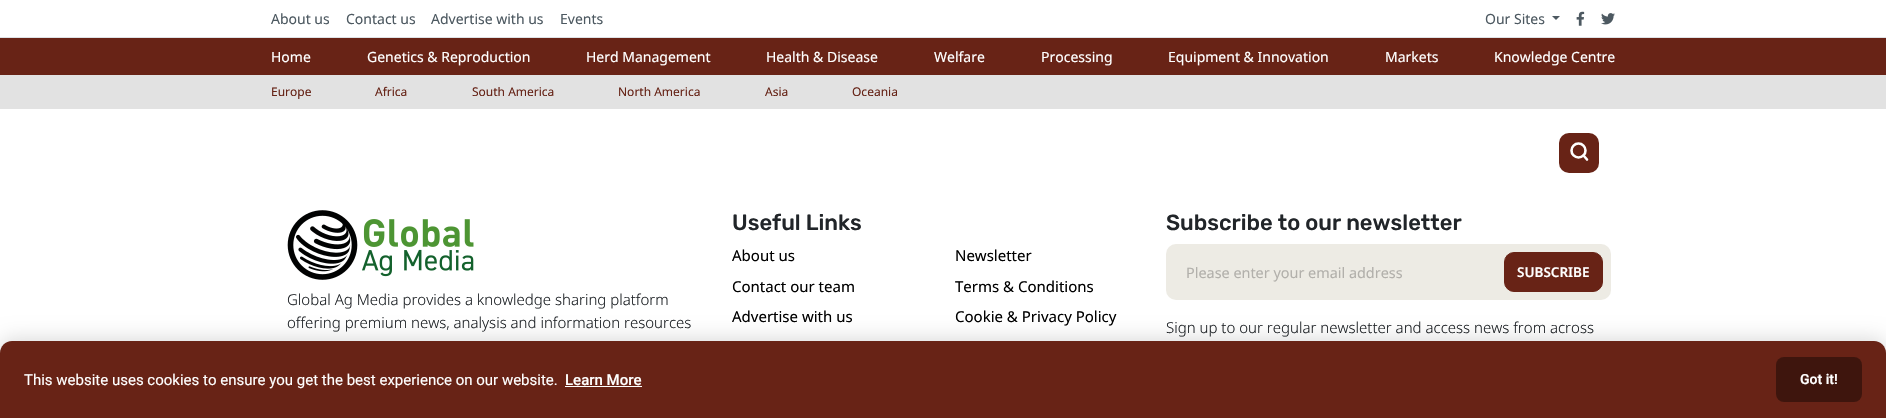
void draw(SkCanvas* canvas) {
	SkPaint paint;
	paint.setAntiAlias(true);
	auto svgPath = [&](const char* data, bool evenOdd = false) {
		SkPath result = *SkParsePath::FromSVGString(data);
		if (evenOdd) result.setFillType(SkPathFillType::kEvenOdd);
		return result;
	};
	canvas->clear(0xffffffff);
	paint.setColor(0xffdee2e6);
	canvas->drawRect(SkRect::MakeXYWH(0, 37, 1886, 1), paint);
	SkFont f1(fontMgr->matchFamilyStyle("Noto Sans", SkFontStyle::Normal()), 14);
	f1.setSubpixel(true);
	paint.setColor(0xff4d5961);
	canvas->drawString("About us", 271, 24, f1, paint);
	canvas->drawString("Contact us", 346, 24, f1, paint);
	canvas->drawString("Advertise with us", 431, 24, f1, paint);
	canvas->drawString("Events", 560, 24, f1, paint);
	canvas->drawString("Our Sites", 1485, 24, f1, paint);
	canvas->drawPath(svgPath("M1552 16H1560L1556 20Z"), paint);
	canvas->drawImageRect(SkImages::DeferredFromEncodedData(SkData::MakeFromFileName("img1.png")), SkRect::MakeXYWH(1576, 11, 9, 15), SkSamplingOptions());
	canvas->drawImageRect(SkImages::DeferredFromEncodedData(SkData::MakeFromFileName("img2.png")), SkRect::MakeXYWH(1601, 13, 14, 12), SkSamplingOptions());
	paint.setColor(0xff682316);
	canvas->drawRect(SkRect::MakeXYWH(0, 38, 1886, 37), paint);
	paint.setColor(0xffffffff);
	canvas->drawString("Home", 271, 62, f1, paint);
	canvas->drawString("Genetics & Reproduction", 367, 62, f1, paint);
	canvas->drawString("Herd Management", 586, 62, f1, paint);
	canvas->drawString("Health & Disease", 766, 62, f1, paint);
	canvas->drawString("Welfare", 934, 62, f1, paint);
	canvas->drawString("Processing", 1041, 62, f1, paint);
	canvas->drawString("Equipment & Innovation", 1168, 62, f1, paint);
	canvas->drawString("Markets", 1385, 62, f1, paint);
	canvas->drawString("Knowledge Centre", 1494, 62, f1, paint);
	paint.setColor(0xffe2e2e2);
	canvas->drawRect(SkRect::MakeXYWH(0, 75, 1886, 34), paint);
	SkFont f2(fontMgr->matchFamilyStyle("Noto Sans", SkFontStyle::Normal()), 12);
	f2.setSubpixel(true);
	paint.setColor(0xff662316);
	canvas->drawString("Europe", 271, 96, f2, paint);
	canvas->drawString("Africa", 375, 96, f2, paint);
	canvas->drawString("South America", 472, 96, f2, paint);
	canvas->drawString("North America", 618, 96, f2, paint);
	canvas->drawString("Asia", 765, 96, f2, paint);
	canvas->drawString("Oceania", 852, 96, f2, paint);
	paint.setColor(0xff682316);
	canvas->drawRoundRect(SkRect::MakeXYWH(1559, 133, 40, 40), 10, 10, paint);
	paint.setStroke(true);
	paint.setStrokeWidth(2.6);
	paint.setColor(0xffffffff);
	canvas->drawCircle(1578.5, 150.5, 7, paint);
	paint.setStrokeCap(SkPaint::kRound_Cap);
	paint.setStrokeJoin(SkPaint::kRound_Join);
	canvas->drawPath(svgPath("M1587 159.5L1583.5 155.5"), paint);
	canvas->drawImageRect(SkImages::DeferredFromEncodedData(SkData::MakeFromFileName("img3.png")), SkRect::MakeXYWH(287, 210, 187, 70), SkSamplingOptions());
	SkFont f3(fontMgr->matchFamilyStyle("Noto Sans", SkFontStyle(300, SkFontStyle::kNormal_Width, SkFontStyle::kUpright_Slant)), 15);
	f3.setSubpixel(true);
	paint.setStroke(false);
	paint.setColor(0xff212529);
	canvas->drawString("Global Ag Media provides a knowledge sharing platform", 287, 305, f3, paint);
	canvas->drawString("offering premium news, analysis and information resources", 287, 328, f3, paint);
	SkFont f4(fontMgr->matchFamilyStyle("Rubik", SkFontStyle(500, SkFontStyle::kNormal_Width, SkFontStyle::kUpright_Slant)), 22);
	f4.setSubpixel(true);
	canvas->drawString("Useful Links", 732, 230, f4, paint);
	SkFont f5(fontMgr->matchFamilyStyle("Noto Sans", SkFontStyle::Normal()), 15);
	f5.setSubpixel(true);
	paint.setColor(0xff000000);
	canvas->drawString("About us", 732, 261, f5, paint);
	canvas->drawString("Contact our team", 732, 292, f5, paint);
	canvas->drawString("Advertise with us", 732, 322, f5, paint);
	canvas->drawString("Newsletter", 955, 261, f5, paint);
	canvas->drawString("Terms & Conditions", 955, 292, f5, paint);
	canvas->drawString("Cookie & Privacy Policy", 955, 322, f5, paint);
	paint.setColor(0xff212529);
	canvas->drawString("Subscribe to our newsletter", 1166, 230, f4, paint);
	paint.setColor(0xffedebe4);
	canvas->drawRoundRect(SkRect::MakeXYWH(1166, 244, 445, 56), 10, 10, paint);
	SkFont f6(fontMgr->matchFamilyStyle("Noto Sans", SkFontStyle::Normal()), 14.4);
	f6.setSubpixel(true);
	paint.setColor(0xffb2b0ab);
	canvas->drawString("Please enter your email address", 1186, 278, f6, paint);
	paint.setColor(0xff682316);
	canvas->drawRoundRect(SkRect::MakeXYWH(1504.5, 252.5, 98, 39), 9.5, 9.5, paint);
	paint.setStroke(true);
	paint.setStrokeWidth(1);
	paint.setStrokeCap(SkPaint::kButt_Cap);
	paint.setStrokeJoin(SkPaint::kMiter_Join);
	canvas->drawRoundRect(SkRect::MakeXYWH(1504.5, 252.5, 98, 39), 9.5, 9.5, paint);
	SkFont f7(fontMgr->matchFamilyStyle("Noto Sans", SkFontStyle(600, SkFontStyle::kNormal_Width, SkFontStyle::kUpright_Slant)), 13.5);
	f7.setSubpixel(true);
	paint.setStroke(false);
	paint.setColor(0xffffffff);
	canvas->drawString("SUBSCRIBE", 1517, 277, f7, paint);
	paint.setColor(0xff212529);
	canvas->drawString("Sign up to our regular newsletter and access news from across", 1166, 333, f3, paint);
	paint.setColor(0x26000000);
	paint.setMaskFilter(SkMaskFilter::MakeBlur(kNormal_SkBlurStyle, 10));
	canvas->drawRoundRect(SkRect::MakeXYWH(0, 339, 1886, 77), 12, 12, paint);
	paint.setMaskFilter(nullptr);
	paint.setColor(0xff682316);
	canvas->drawPath(svgPath("M12 341H1874C1880.5 341 1886 346.5 1886 353V418H0V353C0 346.5 5.5 341 12 341Z"), paint);
	SkFont f8(fontMgr->matchFamilyStyle("Roboto", SkFontStyle::Normal()), 15);
	f8.setSubpixel(true);
	paint.setColor(0xffffffff);
	canvas->drawString("This website uses cookies to ensure you get the best experience on our website.", 24, 385, f8, paint);
	SkFont f9(fontMgr->matchFamilyStyle("Roboto", SkFontStyle(500, SkFontStyle::kNormal_Width, SkFontStyle::kUpright_Slant)), 15);
	f9.setSubpixel(true);
	canvas->drawString("Learn More", 565, 385, f9, paint);
	canvas->drawRect(SkRect::MakeXYWH(565, 386, 77, 1), paint);
	paint.setColor(0xff3e150d);
	canvas->drawRoundRect(SkRect::MakeXYWH(1776, 357, 86, 45), 8, 8, paint);
	SkFont f10(fontMgr->matchFamilyStyle("Roboto", SkFontStyle(600, SkFontStyle::kNormal_Width, SkFontStyle::kUpright_Slant)), 14);
	f10.setSubpixel(true);
	paint.setColor(0xffffffff);
	canvas->drawString("Got it!", 1800, 384, f10, paint);
}
